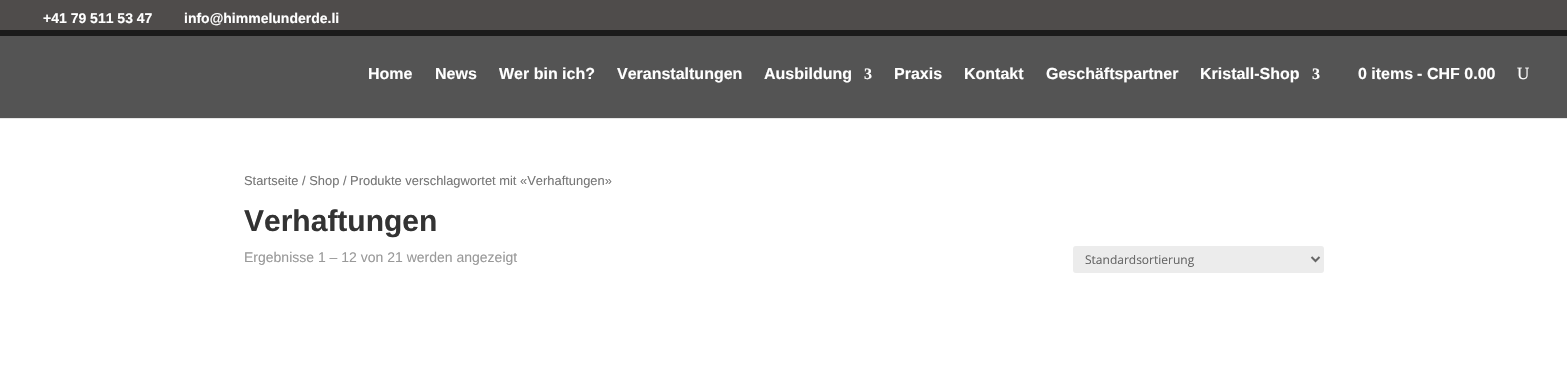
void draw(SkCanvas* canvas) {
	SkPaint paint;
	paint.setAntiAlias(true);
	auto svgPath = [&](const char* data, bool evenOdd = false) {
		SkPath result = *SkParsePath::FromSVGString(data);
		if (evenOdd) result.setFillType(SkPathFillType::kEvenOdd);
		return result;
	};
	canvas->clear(0xff4f4c4b);
	SkFont f1(fontMgr->matchFamilyStyle("Liberation Sans", SkFontStyle::Bold()), 14);
	f1.setSubpixel(true);
	paint.setColor(0xffffffff);
	canvas->drawString("+41 79 511 53 47", 43, 23, f1, paint);
	canvas->drawString("info@himmelunderde.li", 184, 23, f1, paint);
	paint.setColor(0xffe6e6e6);
	canvas->drawRect(SkRect::MakeXYWH(0, 118, 1567, 1), paint);
	paint.setColor(0xff545454);
	canvas->drawRect(SkRect::MakeXYWH(0, 36, 1567, 82), paint);
	paint.setColor(0xff1b1b1b);
	canvas->drawRect(SkRect::MakeXYWH(0, 30, 1567, 6), paint);
	SkFont f2(fontMgr->matchFamilyStyle("Liberation Sans", SkFontStyle::Bold()), 16);
	f2.setSubpixel(true);
	paint.setColor(0xffffffff);
	canvas->drawString("Home", 368, 79, f2, paint);
	canvas->drawString("News", 435, 79, f2, paint);
	canvas->drawString("Wer bin ich?", 499, 79, f2, paint);
	canvas->drawString("Veranstaltungen", 617, 79, f2, paint);
	canvas->drawString("Ausbildung", 764, 79, f2, paint);
	SkFont f3(fontMgr->matchFamilyStyle("Liberation Serif", SkFontStyle::Bold()), 16);
	f3.setSubpixel(true);
	canvas->drawString("3", 864, 79, f3, paint);
	canvas->drawString("Praxis", 894, 79, f2, paint);
	canvas->drawString("Kontakt", 964, 79, f2, paint);
	canvas->drawString("Geschäftspartner", 1046, 79, f2, paint);
	canvas->drawString("Kristall-Shop", 1200, 79, f2, paint);
	canvas->drawString("3", 1312, 79, f3, paint);
	canvas->drawString("0 items", 1358, 79, f2, paint);
	canvas->drawString("-", 1417, 79, f2, paint);
	canvas->drawString("CHF 0.00", 1427, 79, f2, paint);
	SkFont f4(fontMgr->matchFamilyStyle("Liberation Serif", SkFontStyle::Normal()), 17);
	f4.setSubpixel(true);
	canvas->drawString("U", 1517, 79, f4, paint);
	canvas->drawRect(SkRect::MakeXYWH(0, 119, 1567, 257), paint);
	SkFont f5(fontMgr->matchFamilyStyle("Liberation Sans", SkFontStyle::Normal()), 12.9);
	f5.setSubpixel(true);
	paint.setColor(0xff767676);
	canvas->drawString("Startseite / Shop / Produkte verschlagwortet mit «Verhaftungen»", 244, 185, f5, paint);
	SkFont f6(fontMgr->matchFamilyStyle("Liberation Sans", SkFontStyle::Bold()), 30);
	f6.setSubpixel(true);
	paint.setColor(0xff333333);
	canvas->drawString("Verhaftungen", 244, 231, f6, paint);
	SkFont f7(fontMgr->matchFamilyStyle("Liberation Sans", SkFontStyle::Normal()), 14);
	f7.setSubpixel(true);
	paint.setColor(0xff999999);
	canvas->drawString("Ergebnisse 1 – 12 von 21 werden angezeigt", 244, 262, f7, paint);
	paint.setColor(0xffececec);
	canvas->drawRoundRect(SkRect::MakeXYWH(1073, 246, 251, 27), 3, 3, paint);
	paint.setStroke(true);
	paint.setStrokeWidth(2);
	paint.setColor(0xff666666);
	canvas->drawPath(svgPath("M1311.5 257L1315.5 261L1319.5 257"), paint);
	SkFont f8(fontMgr->matchFamilyStyle("Open Sans", SkFontStyle::Normal()), 12);
	f8.setSubpixel(true);
	paint.setStroke(false);
	canvas->drawString("Standardsortierung", 1085, 264, f8, paint);
}
